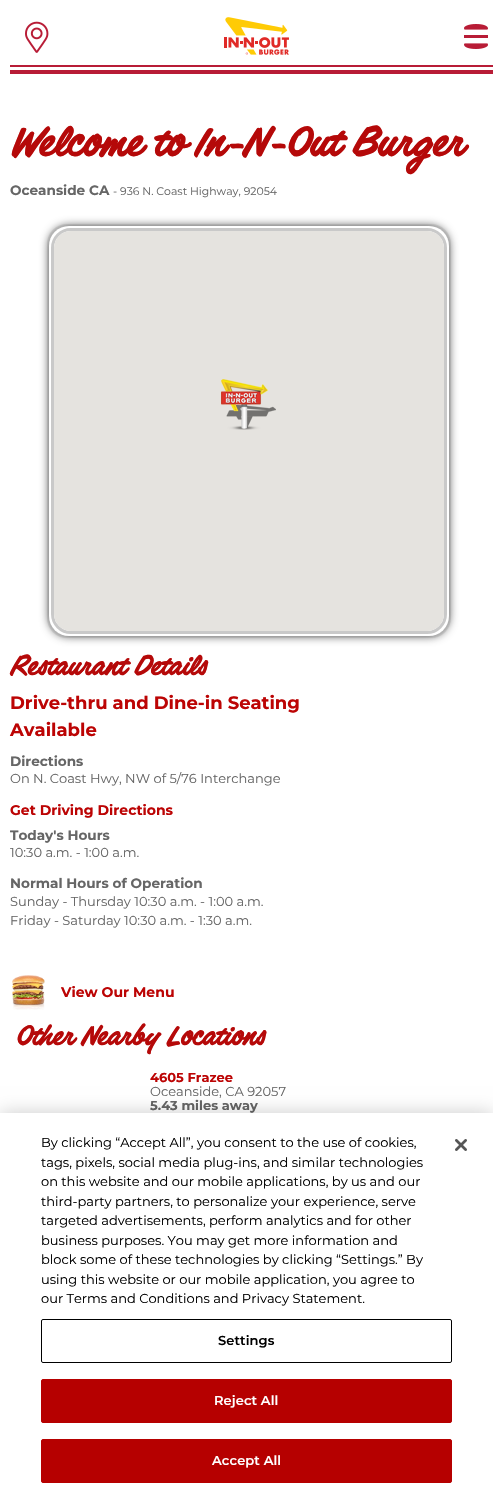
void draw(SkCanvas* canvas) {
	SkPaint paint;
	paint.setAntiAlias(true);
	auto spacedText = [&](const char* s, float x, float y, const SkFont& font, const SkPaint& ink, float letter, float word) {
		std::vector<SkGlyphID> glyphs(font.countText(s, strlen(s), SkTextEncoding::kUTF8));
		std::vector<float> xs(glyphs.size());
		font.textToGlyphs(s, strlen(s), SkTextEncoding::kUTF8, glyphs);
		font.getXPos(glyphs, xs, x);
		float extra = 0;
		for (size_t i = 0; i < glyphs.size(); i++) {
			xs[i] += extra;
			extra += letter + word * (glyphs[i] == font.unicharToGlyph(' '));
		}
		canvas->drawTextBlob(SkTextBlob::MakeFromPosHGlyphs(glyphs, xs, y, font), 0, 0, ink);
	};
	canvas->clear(0xffffffff);
	paint.setColor(0xffb81c36);
	canvas->drawRect(SkRect::MakeXYWH(10, 70, 483, 4), paint);
	canvas->drawRect(SkRect::MakeXYWH(10, 65, 483, 2), paint);
	canvas->drawImageRect(SkImages::DeferredFromEncodedData(SkData::MakeFromFileName("img1.png")), SkRect::MakeXYWH(25, 21, 24, 32), SkSamplingOptions());
	canvas->drawImageRect(SkImages::DeferredFromEncodedData(SkData::MakeFromFileName("img2.png")), SkRect::MakeXYWH(224, 17, 65, 38), SkSamplingOptions());
	canvas->drawImageRect(SkImages::DeferredFromEncodedData(SkData::MakeFromFileName("img3.png")), SkRect::MakeXYWH(464, 24, 24, 25), SkSamplingOptions());
	SkFont f1(fontMgr->matchFamilyStyle("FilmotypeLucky", SkFontStyle::Bold()), 48);
	f1.setSubpixel(true);
	paint.setColor(0xffb50909);
	canvas->drawString("Welcome to In-N-Out Burger", 10, 156, f1, paint);
	SkFont f2(fontMgr->matchFamilyStyle("Montserrat", SkFontStyle::Bold()), 13.6);
	f2.setSubpixel(true);
	paint.setColor(0xff666666);
	canvas->drawString("Oceanside CA", 10, 195, f2, paint);
	SkFont f3(fontMgr->matchFamilyStyle("Montserrat", SkFontStyle::Normal()), 10.9);
	f3.setSubpixel(true);
	canvas->drawString("- 936 N. Coast Highway, 92054", 113, 195, f3, paint);
	paint.setStroke(true);
	paint.setStrokeWidth(2);
	paint.setColor(0xffeeeeee);
	canvas->drawRoundRect(SkRect::MakeXYWH(48, 225, 402, 412), 19, 19, paint);
	paint.setStroke(false);
	paint.setColor(0xb3000000);
	paint.setMaskFilter(SkMaskFilter::MakeBlur(kNormal_SkBlurStyle, 5));
	canvas->drawRoundRect(SkRect::MakeXYWH(49, 226, 400, 410), 20, 20, paint);
	paint.setMaskFilter(nullptr);
	paint.setColor(0xffffffff);
	canvas->drawRoundRect(SkRect::MakeXYWH(49, 226, 400, 410), 20, 20, paint);
	paint.setStroke(true);
	paint.setStrokeWidth(3);
	paint.setColor(0xffc9c9c9);
	canvas->drawRoundRect(SkRect::MakeXYWH(52.5, 229.5, 393, 403), 18.5, 18.5, paint);
	paint.setStroke(false);
	paint.setColor(0xffe5e3df);
	canvas->drawRoundRect(SkRect::MakeXYWH(54, 231, 390, 400), 17, 17, paint);
	canvas->drawImageRect(SkImages::DeferredFromEncodedData(SkData::MakeFromFileName("img4.png")), SkRect::MakeXYWH(221, 379, 55, 51), SkSamplingOptions());
	SkFont f4(fontMgr->matchFamilyStyle("FilmotypeLucky", SkFontStyle::Bold()), 32);
	f4.setSubpixel(true);
	paint.setColor(0xffb50909);
	canvas->drawString("Restaurant Details", 10, 675, f4, paint);
	SkFont f5(fontMgr->matchFamilyStyle("Montserrat", SkFontStyle::Bold()), 18);
	f5.setSubpixel(true);
	paint.setColor(0xffbc0404);
	canvas->drawString("Drive-thru and Dine-in Seating", 10, 709, f5, paint);
	canvas->drawString("Available", 10, 736, f5, paint);
	paint.setColor(0xff666666);
	canvas->drawString("Directions", 10, 766, f2, paint);
	SkFont f6(fontMgr->matchFamilyStyle("Montserrat", SkFontStyle::Normal()), 13);
	f6.setSubpixel(true);
	canvas->drawString("On N. Coast Hwy, NW of 5/76 Interchange", 10, 783, f6, paint);
	SkFont f7(fontMgr->matchFamilyStyle("Montserrat", SkFontStyle::Bold()), 14);
	f7.setSubpixel(true);
	paint.setColor(0xffbc0404);
	canvas->drawString("Get Driving Directions", 10, 815, f7, paint);
	paint.setColor(0xff666666);
	canvas->drawString("Today's Hours", 10, 840, f2, paint);
	canvas->drawString("10:30 a.m. - 1:00 a.m.", 10, 857, f6, paint);
	canvas->drawString("Normal Hours of Operation", 10, 888, f2, paint);
	canvas->drawString("Sunday - Thursday 10:30 a.m. - 1:00 a.m.", 10, 906, f6, paint);
	canvas->drawString("Friday - Saturday 10:30 a.m. - 1:30 a.m.", 10, 925, f6, paint);
	canvas->drawImageRect(SkImages::DeferredFromEncodedData(SkData::MakeFromFileName("img5.png")), SkRect::MakeXYWH(12, 975, 33, 35), SkSamplingOptions());
	paint.setColor(0xffbc0404);
	canvas->drawString("View Our Menu", 61, 997, f7, paint);
	paint.setColor(0xffb50909);
	canvas->drawString("Other Nearby Locations", 15, 1045, f4, paint);
	SkFont f8(fontMgr->matchFamilyStyle("Montserrat", SkFontStyle::Bold()), 13);
	f8.setSubpixel(true);
	paint.setColor(0xffbc0404);
	canvas->drawString("4605 Frazee", 150, 1082, f8, paint);
	paint.setColor(0xff666666);
	canvas->drawString("Oceanside, CA 92057", 150, 1096, f6, paint);
	canvas->drawString("5.43 miles away", 150, 1110, f8, paint);
	paint.setColor(0x33000000);
	paint.setMaskFilter(SkMaskFilter::MakeBlur(kNormal_SkBlurStyle, 9));
	canvas->drawRect(SkRect::MakeXYWH(0, 1113, 493, 386), paint);
	paint.setMaskFilter(nullptr);
	paint.setColor(0xffffffff);
	canvas->drawRect(SkRect::MakeXYWH(0, 1113, 493, 386), paint);
	paint.setColor(0xff000000);
	canvas->drawString("By clicking “Accept All”, you consent to the use of cookies,", 41, 1147, f6, paint);
	canvas->drawString("tags, pixels, social media plug-ins, and similar technologies", 41, 1167, f6, paint);
	canvas->drawString("on this website and our mobile applications, by us and our", 41, 1186, f6, paint);
	canvas->drawString("third-party partners, to personalize your experience, serve", 41, 1206, f6, paint);
	canvas->drawString("targeted advertisements, perform analytics and for other", 41, 1225, f6, paint);
	canvas->drawString("business purposes. You may get more information and", 41, 1245, f6, paint);
	canvas->drawString("block some of these technologies by clicking “Settings.”  By", 41, 1264, f6, paint);
	canvas->drawString("using this website or our mobile application, you agree to", 41, 1284, f6, paint);
	canvas->drawString("our Terms and Conditions and Privacy Statement.", 41, 1303, f6, paint);
	paint.setStroke(true);
	paint.setStrokeWidth(1);
	canvas->drawRoundRect(SkRect::MakeXYWH(41.5, 1319.5, 410, 43), 1.5, 1.5, paint);
	SkFont f9(fontMgr->matchFamilyStyle("Montserrat", SkFontStyle(600, SkFontStyle::kNormal_Width, SkFontStyle::kUpright_Slant)), 13);
	f9.setSubpixel(true);
	paint.setStroke(false);
	spacedText("Settings", 218, 1345, f9, paint, 0.1, 0);
	paint.setColor(0xffb60000);
	canvas->drawRoundRect(SkRect::MakeXYWH(41.5, 1379.5, 410, 43), 1.5, 1.5, paint);
	paint.setStroke(true);
	canvas->drawRoundRect(SkRect::MakeXYWH(41.5, 1379.5, 410, 43), 1.5, 1.5, paint);
	paint.setStroke(false);
	paint.setColor(0xffffffff);
	spacedText("Reject All", 214, 1405, f9, paint, 0.1, 0);
	paint.setColor(0xffb60000);
	canvas->drawRoundRect(SkRect::MakeXYWH(41.5, 1439.5, 410, 43), 1.5, 1.5, paint);
	paint.setStroke(true);
	canvas->drawRoundRect(SkRect::MakeXYWH(41.5, 1439.5, 410, 43), 1.5, 1.5, paint);
	paint.setStroke(false);
	paint.setColor(0xffffffff);
	spacedText("Accept All", 212, 1465, f9, paint, 0.1, 0);
	canvas->drawImageRect(SkImages::DeferredFromEncodedData(SkData::MakeFromFileName("img6.png")), SkRect::MakeXYWH(455, 1139, 12, 12), SkSamplingOptions());
}
